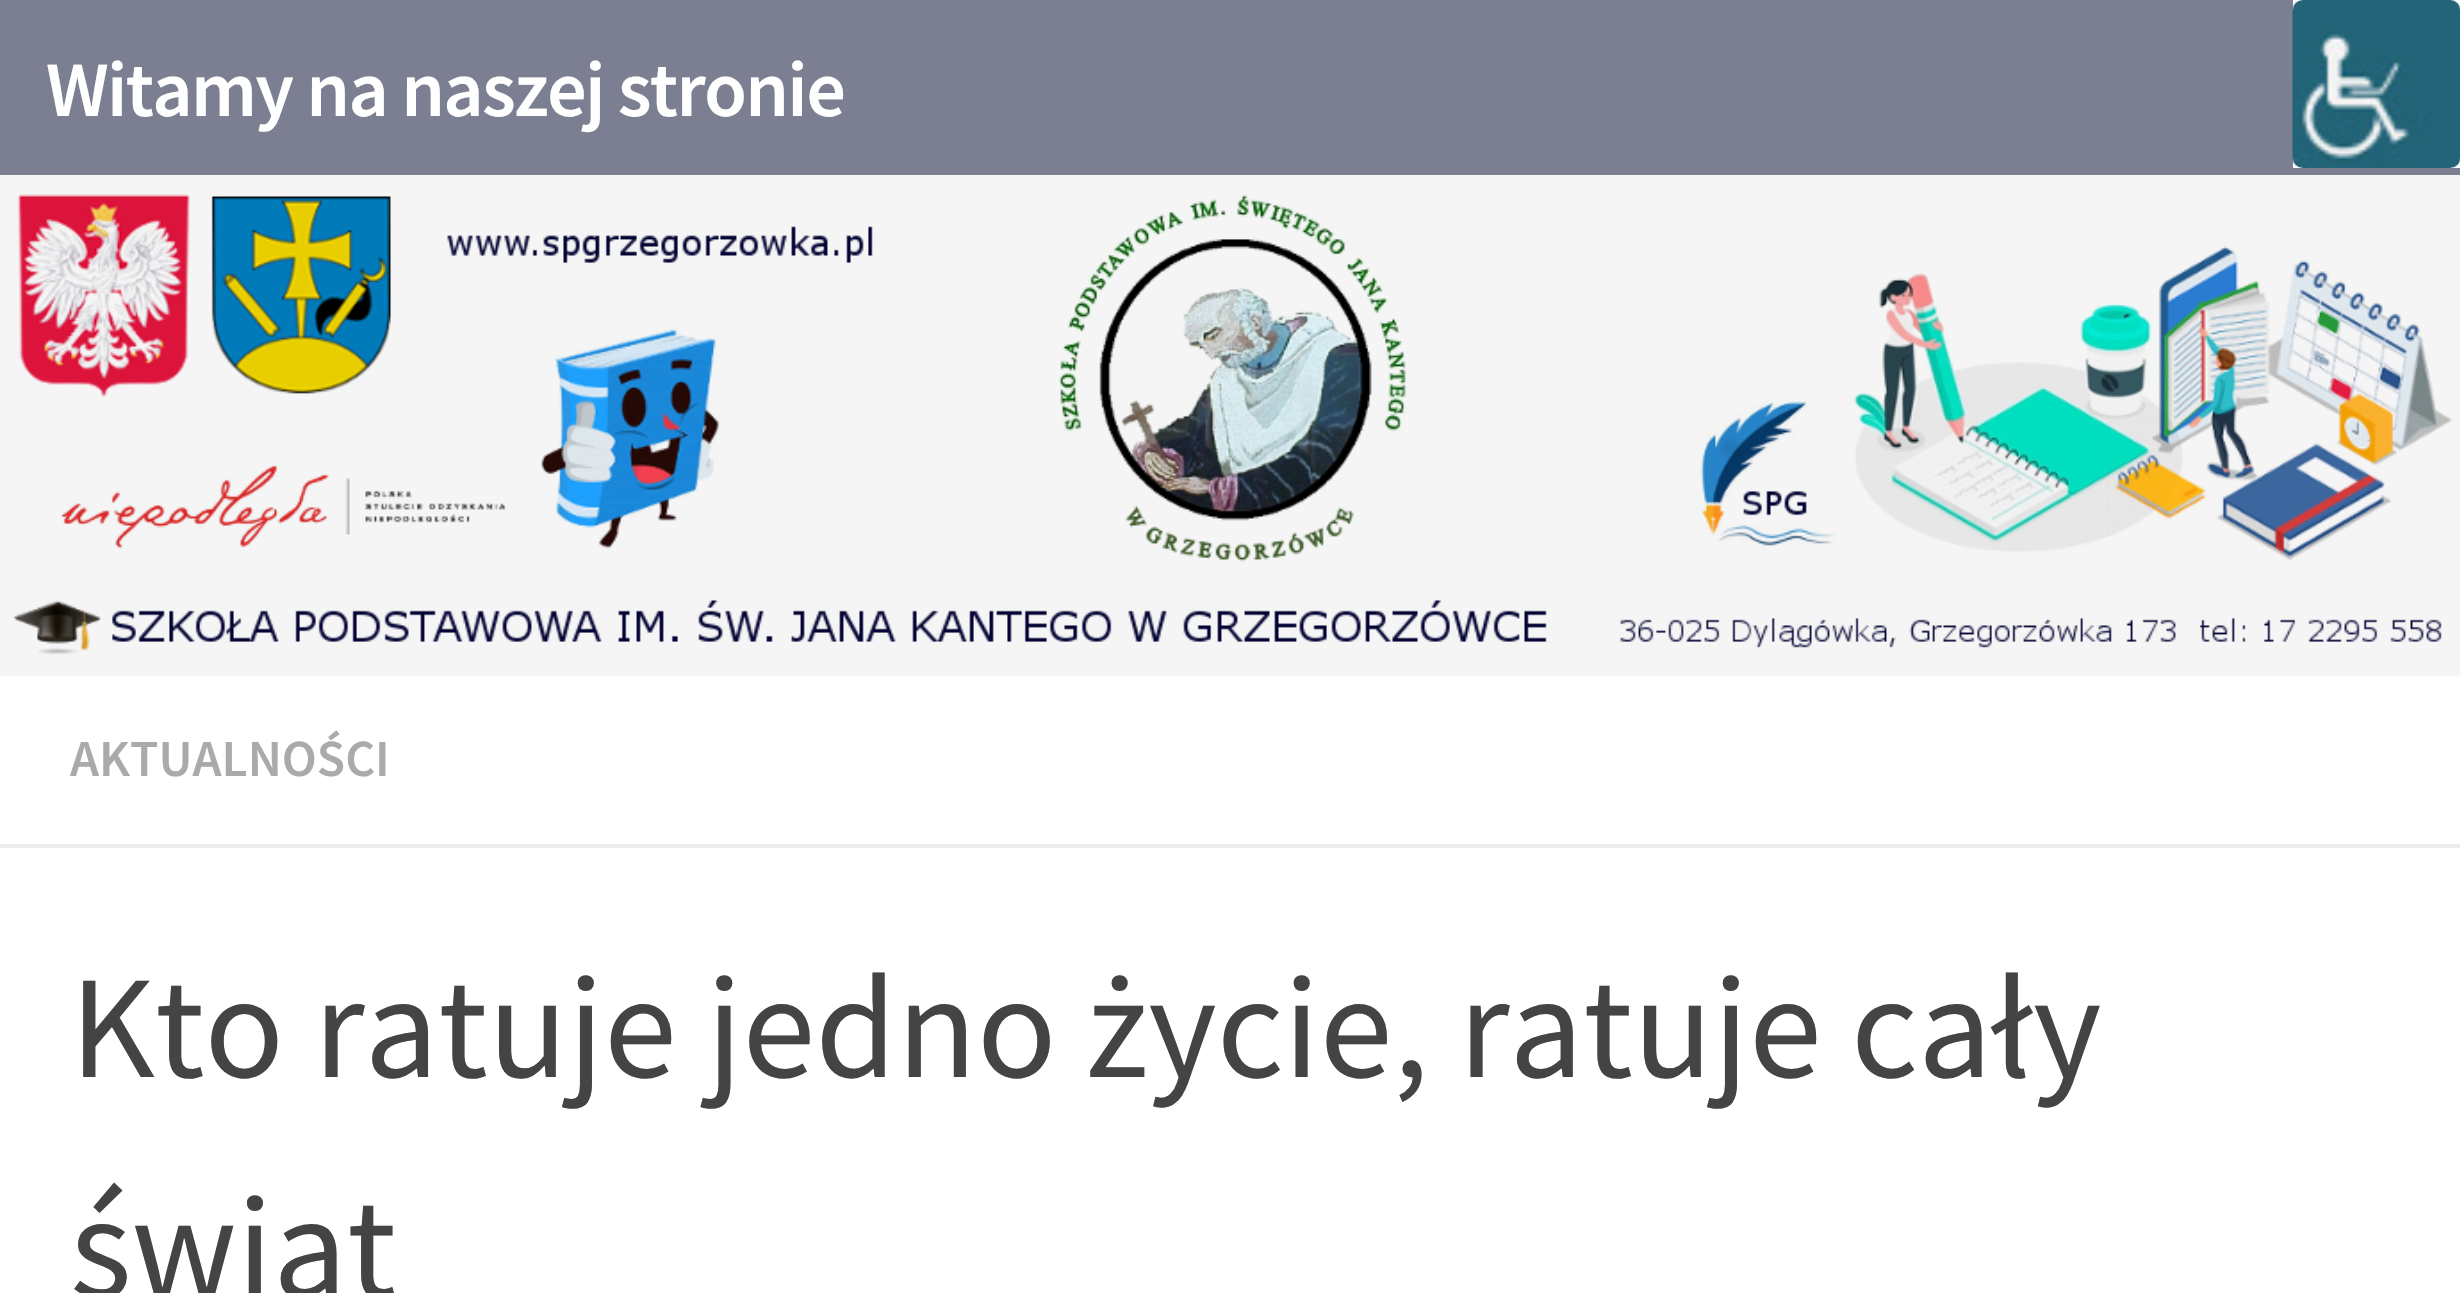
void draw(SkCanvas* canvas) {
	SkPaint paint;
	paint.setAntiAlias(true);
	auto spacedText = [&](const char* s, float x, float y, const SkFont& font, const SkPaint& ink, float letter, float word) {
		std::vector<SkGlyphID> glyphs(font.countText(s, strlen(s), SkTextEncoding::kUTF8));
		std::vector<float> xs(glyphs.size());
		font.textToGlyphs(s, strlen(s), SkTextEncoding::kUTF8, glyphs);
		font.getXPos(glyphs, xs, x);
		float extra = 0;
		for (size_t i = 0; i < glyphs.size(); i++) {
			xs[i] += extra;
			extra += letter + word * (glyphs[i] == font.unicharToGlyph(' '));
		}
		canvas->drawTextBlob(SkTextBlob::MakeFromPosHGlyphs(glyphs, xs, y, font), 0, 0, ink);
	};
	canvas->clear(0xffffffff);
	paint.setColor(0xfff5f5f5);
	canvas->drawRect(SkRect::MakeXYWH(0, 175, 2460, 501), paint);
	paint.setColor(0xff7c7f91);
	canvas->drawRect(SkRect::MakeXYWH(0, 0, 2460, 175), paint);
	SkFont f1(fontMgr->matchFamilyStyle("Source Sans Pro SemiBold", SkFontStyle(600, SkFontStyle::kNormal_Width, SkFontStyle::kUpright_Slant)), 78.4);
	f1.setSubpixel(true);
	paint.setColor(0xffffffff);
	spacedText("Witamy na naszej stronie", 46, 116, f1, paint, -1.75, 0);
	canvas->drawImageRect(SkImages::DeferredFromEncodedData(SkData::MakeFromFileName("img1.png")), SkRect::MakeXYWH(13, 194, 2439, 461), SkSamplingOptions());
	paint.setColor(0xffeeeeee);
	canvas->drawRect(SkRect::MakeXYWH(0, 844, 2460, 4), paint);
	SkFont f2(fontMgr->matchFamilyStyle("Source Sans Pro SemiBold", SkFontStyle(600, SkFontStyle::kNormal_Width, SkFontStyle::kUpright_Slant)), 52);
	f2.setSubpixel(true);
	paint.setColor(0xffaaaaaa);
	canvas->drawString("AKTUALNOŚCI", 70, 776, f2, paint);
	SkFont f3(fontMgr->matchFamilyStyle("Source Sans Pro", SkFontStyle::Normal()), 146.75);
	f3.setSubpixel(true);
	paint.setColor(0xff444444);
	canvas->drawString("Kto ratuje jedno życie, ratuje cały", 70, 1077, f3, paint);
	canvas->drawString("świat", 70, 1297, f3, paint);
	paint.setColor(0xffffffff);
	canvas->drawRect(SkRect::MakeXYWH(2293, 0, 167, 168), paint);
	canvas->drawImageRect(SkImages::DeferredFromEncodedData(SkData::MakeFromFileName("img2.png")), SkRect::MakeXYWH(2292, 0, 168, 168), SkSamplingOptions());
}
